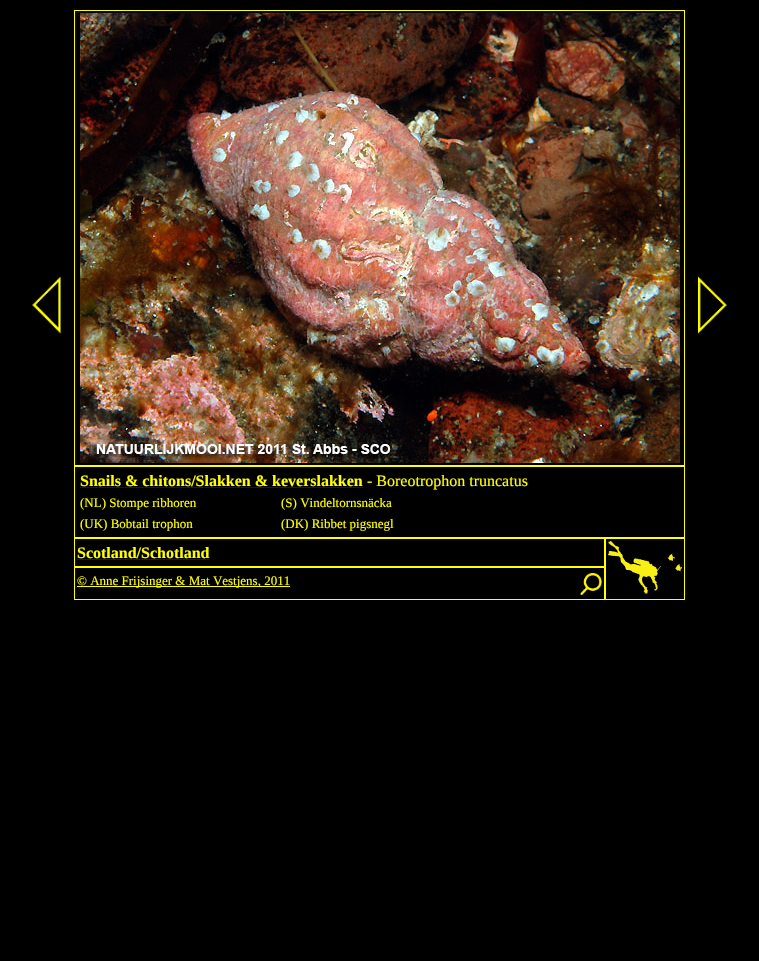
void draw(SkCanvas* canvas) {
	SkPaint paint;
	paint.setAntiAlias(true);
	canvas->clear(0xff000000);
	canvas->drawImageRect(SkImages::DeferredFromEncodedData(SkData::MakeFromFileName("img1.png")), SkRect::MakeXYWH(32, 276, 29, 58), SkSamplingOptions());
	canvas->drawImageRect(SkImages::DeferredFromEncodedData(SkData::MakeFromFileName("img2.png")), SkRect::MakeXYWH(698, 276, 29, 58), SkSamplingOptions());
	paint.setStroke(true);
	paint.setStrokeWidth(1);
	paint.setColor(0xffffff00);
	canvas->drawRect(SkRect::MakeXYWH(74.5, 10.5, 610, 455), paint);
	canvas->drawImageRect(SkImages::DeferredFromEncodedData(SkData::MakeFromFileName("img3.png")), SkRect::MakeXYWH(80, 13, 600, 450), SkSamplingOptions());
	canvas->drawRect(SkRect::MakeXYWH(74.5, 466.5, 610, 71), paint);
	SkFont f1(fontMgr->matchFamilyStyle("Liberation Serif", SkFontStyle::Bold()), 16);
	f1.setSubpixel(true);
	paint.setStroke(false);
	canvas->drawString("Snails & chitons/Slakken & keverslakken", 80, 486, f1, paint);
	paint.setColor(0xff0000ee);
	canvas->drawRect(SkRect::MakeXYWH(80, 487, 283, 1), paint);
	SkFont f2(fontMgr->matchFamilyStyle("Liberation Serif", SkFontStyle::Normal()), 16);
	f2.setSubpixel(true);
	paint.setColor(0xffffff00);
	canvas->drawString("- Boreotrophon truncatus", 367, 486, f2, paint);
	SkFont f3(fontMgr->matchFamilyStyle("Liberation Serif", SkFontStyle::Normal()), 13);
	f3.setSubpixel(true);
	canvas->drawString("(NL) Stompe ribhoren", 80, 507, f3, paint);
	canvas->drawString("(S) Vindeltornsnäcka", 281, 507, f3, paint);
	canvas->drawString("(UK) Bobtail trophon", 80, 528, f3, paint);
	canvas->drawString("(DK) Ribbet pigsnegl", 281, 528, f3, paint);
	paint.setStroke(true);
	canvas->drawRect(SkRect::MakeXYWH(74.5, 538.5, 530, 28), paint);
	paint.setStroke(false);
	canvas->drawString("Scotland/Schotland", 77, 558, f1, paint);
	paint.setColor(0xff0000ee);
	canvas->drawRect(SkRect::MakeXYWH(77, 559, 132, 1), paint);
	paint.setStroke(true);
	paint.setColor(0xffffff00);
	canvas->drawRect(SkRect::MakeXYWH(605.5, 538.5, 79, 61), paint);
	canvas->drawImageRect(SkImages::DeferredFromEncodedData(SkData::MakeFromFileName("img4.png")), SkRect::MakeXYWH(608, 541, 74, 53), SkSamplingOptions());
	canvas->drawRect(SkRect::MakeXYWH(74.5, 567.5, 530, 32), paint);
	paint.setStroke(false);
	canvas->drawRect(SkRect::MakeXYWH(77, 586, 213, 1), paint);
	canvas->drawString("© Anne Frijsinger & Mat Vestjens, 2011", 77, 585, f3, paint);
	canvas->drawImageRect(SkImages::DeferredFromEncodedData(SkData::MakeFromFileName("img5.png")), SkRect::MakeXYWH(580, 573, 22, 22), SkSamplingOptions());
}
